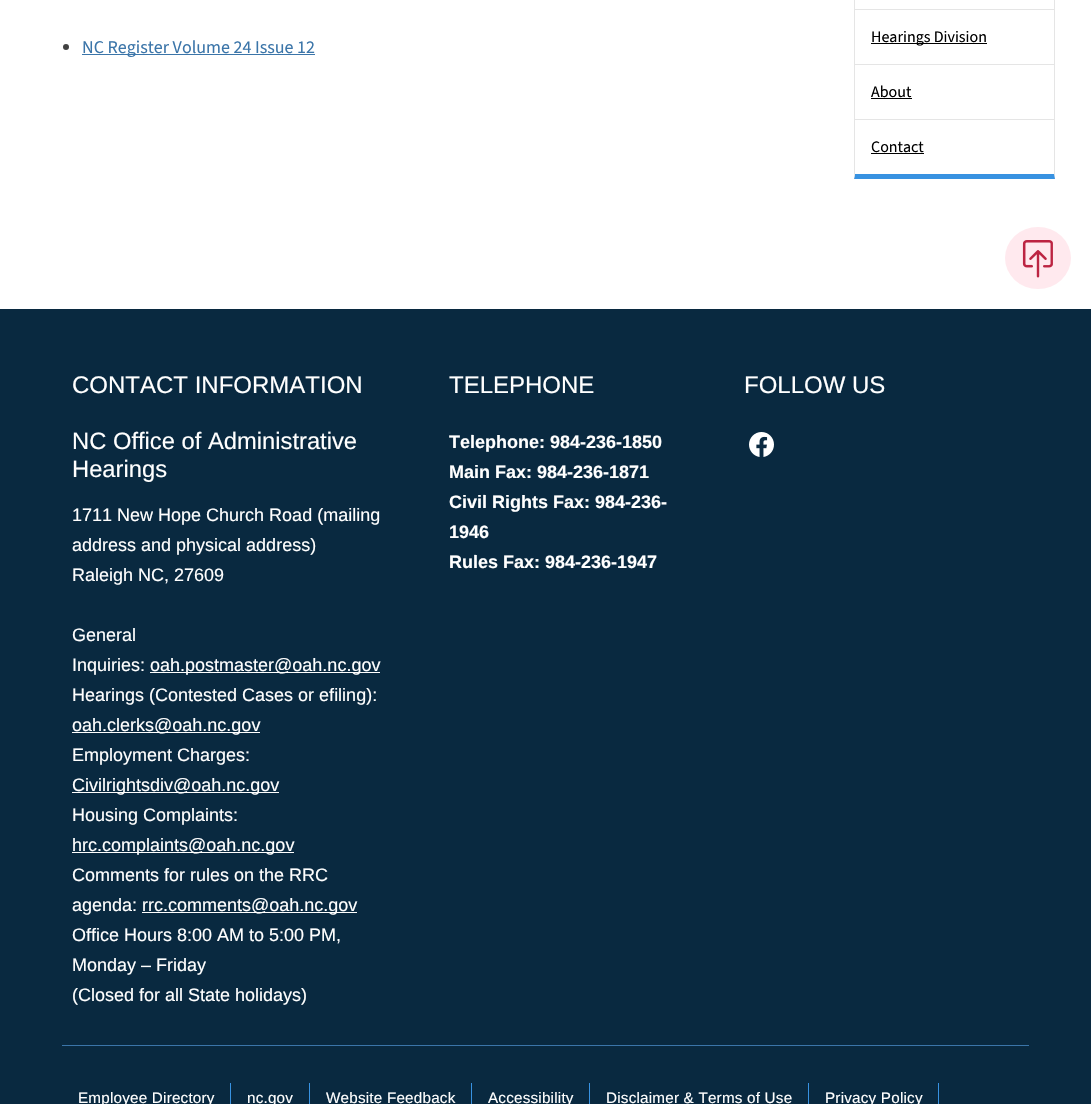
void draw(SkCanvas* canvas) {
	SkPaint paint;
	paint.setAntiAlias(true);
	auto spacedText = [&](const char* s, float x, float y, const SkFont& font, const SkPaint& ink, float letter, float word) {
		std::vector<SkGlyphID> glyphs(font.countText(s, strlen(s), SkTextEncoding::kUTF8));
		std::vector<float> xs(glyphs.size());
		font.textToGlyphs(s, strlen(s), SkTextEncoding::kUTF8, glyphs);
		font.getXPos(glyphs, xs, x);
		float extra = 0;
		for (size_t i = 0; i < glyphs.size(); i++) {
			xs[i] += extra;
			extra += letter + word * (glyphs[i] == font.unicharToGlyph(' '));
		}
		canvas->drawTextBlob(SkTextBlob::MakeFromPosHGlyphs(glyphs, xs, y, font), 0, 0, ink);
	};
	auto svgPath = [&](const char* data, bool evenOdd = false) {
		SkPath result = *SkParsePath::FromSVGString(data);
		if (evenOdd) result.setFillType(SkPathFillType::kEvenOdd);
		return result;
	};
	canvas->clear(0xffffffff);
	paint.setColor(0xff424242);
	canvas->drawCircle(66, 47, 3, paint);
	paint.setColor(0xff3b75a9);
	canvas->drawRect(SkRect::MakeXYWH(82, 54, 233, 1), paint);
	SkFont f1(fontMgr->matchFamilyStyle("Source Sans 3", SkFontStyle::Normal()), 18);
	f1.setSubpixel(true);
	canvas->drawString("NC Register Volume 24 Issue 12", 82, 53, f1, paint);
	paint.setColor(0xffe5e5e5);
	canvas->drawPath(svgPath("M1055-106V179L1054 174V-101Z"), paint);
	paint.setColor(0xff3892e1);
	canvas->drawPath(svgPath("M1055 179H854L855 174H1054Z"), paint);
	paint.setColor(0xffe5e5e5);
	canvas->drawPath(svgPath("M854 179V-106L855-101V174Z"), paint);
	canvas->drawRect(SkRect::MakeXYWH(855, 9, 199, 1), paint);
	paint.setColor(0xff000000);
	canvas->drawRect(SkRect::MakeXYWH(871, 43, 116, 1), paint);
	SkFont f2(fontMgr->matchFamilyStyle("Source Sans 3", SkFontStyle::Normal()), 16);
	f2.setSubpixel(true);
	canvas->drawString("Hearings Division", 871, 42, f2, paint);
	paint.setColor(0xffe5e5e5);
	canvas->drawRect(SkRect::MakeXYWH(855, 64, 199, 1), paint);
	paint.setColor(0xff000000);
	canvas->drawString("About", 871, 97, f2, paint);
	canvas->drawRect(SkRect::MakeXYWH(871, 98, 41, 1), paint);
	paint.setColor(0xffe5e5e5);
	canvas->drawRect(SkRect::MakeXYWH(855, 119, 199, 1), paint);
	paint.setColor(0xff000000);
	canvas->drawString("Contact", 871, 152, f2, paint);
	canvas->drawRect(SkRect::MakeXYWH(871, 153, 53, 1), paint);
	paint.setColor(0xffffe9ee);
	canvas->drawOval(SkRect::MakeXYWH(1005, 227, 66, 62), paint);
	canvas->drawImageRect(SkImages::DeferredFromEncodedData(SkData::MakeFromFileName("img1.png")), SkRect::MakeXYWH(1022, 240, 31, 38), SkSamplingOptions());
	paint.setColor(0xff092940);
	canvas->drawRect(SkRect::MakeXYWH(0, 309, 1091, 795), paint);
	paint.setColor(0xff3b75a9);
	canvas->drawRect(SkRect::MakeXYWH(62, 1045, 967, 1), paint);
	SkFont f3(fontMgr->matchFamilyStyle("Liberation Sans", SkFontStyle::Normal()), 24);
	f3.setSubpixel(true);
	paint.setColor(0xffffffff);
	canvas->drawString("CONTACT INFORMATION", 72, 393, f3, paint);
	SkFont f4(fontMgr->matchFamilyStyle("Liberation Sans", SkFontStyle::Normal()), 23.75);
	f4.setSubpixel(true);
	canvas->drawString("NC Office of Administrative", 72, 449, f4, paint);
	canvas->drawString("Hearings", 72, 477, f4, paint);
	SkFont f5(fontMgr->matchFamilyStyle("Liberation Sans", SkFontStyle::Normal()), 18);
	f5.setSubpixel(true);
	canvas->drawString("1711 New Hope Church Road (mailing", 72, 521, f5, paint);
	canvas->drawString("address and physical address)", 72, 551, f5, paint);
	canvas->drawString("Raleigh NC, 27609", 72, 581, f5, paint);
	canvas->drawString("General", 72, 641, f5, paint);
	canvas->drawString("Inquiries:", 72, 671, f5, paint);
	canvas->drawRect(SkRect::MakeXYWH(150, 672, 230, 1), paint);
	canvas->drawString("oah.postmaster@oah.nc.gov", 150, 671, f5, paint);
	canvas->drawString("Hearings (Contested Cases or efiling):", 72, 701, f5, paint);
	canvas->drawRect(SkRect::MakeXYWH(72, 732, 188, 1), paint);
	canvas->drawString("oah.clerks@oah.nc.gov", 72, 731, f5, paint);
	canvas->drawString("Employment Charges:", 72, 761, f5, paint);
	canvas->drawRect(SkRect::MakeXYWH(72, 792, 207, 1), paint);
	canvas->drawString("Civilrightsdiv@oah.nc.gov", 72, 791, f5, paint);
	canvas->drawString("Housing Complaints:", 72, 821, f5, paint);
	canvas->drawRect(SkRect::MakeXYWH(72, 852, 222, 1), paint);
	canvas->drawString("hrc.complaints@oah.nc.gov", 72, 851, f5, paint);
	canvas->drawString("Comments for rules on the RRC", 72, 881, f5, paint);
	canvas->drawString("agenda:", 72, 911, f5, paint);
	canvas->drawRect(SkRect::MakeXYWH(142, 912, 215, 1), paint);
	canvas->drawString("rrc.comments@oah.nc.gov", 142, 911, f5, paint);
	canvas->drawString("Office Hours 8:00 AM to 5:00 PM,", 72, 941, f5, paint);
	canvas->drawString("Monday – Friday", 72, 971, f5, paint);
	canvas->drawString("(Closed for all State holidays)", 72, 1001, f5, paint);
	canvas->drawString("TELEPHONE", 449, 393, f3, paint);
	SkFont f6(fontMgr->matchFamilyStyle("Liberation Sans", SkFontStyle::Bold()), 18);
	f6.setSubpixel(true);
	canvas->drawString("Telephone: 984-236-1850", 449, 448, f6, paint);
	canvas->drawString("Main Fax: 984-236-1871", 449, 478, f6, paint);
	canvas->drawString("Civil Rights Fax: 984-236-", 449, 508, f6, paint);
	canvas->drawString("1946", 449, 538, f6, paint);
	canvas->drawString("Rules Fax: 984-236-1947", 449, 568, f6, paint);
	canvas->drawString("FOLLOW US", 744, 393, f3, paint);
	canvas->drawImageRect(SkImages::DeferredFromEncodedData(SkData::MakeFromFileName("img2.png")), SkRect::MakeXYWH(749, 432, 25, 25), SkSamplingOptions());
	paint.setColor(0xff3892e1);
	canvas->drawRect(SkRect::MakeXYWH(230, 1083, 1, 21), paint);
	SkFont f7(fontMgr->matchFamilyStyle("Liberation Sans", SkFontStyle::Normal()), 15.25);
	f7.setSubpixel(true);
	paint.setColor(0xffffffff);
	spacedText("Employee Directory", 78, 1103, f7, paint, 0.2, 0);
	paint.setColor(0xff3892e1);
	canvas->drawRect(SkRect::MakeXYWH(309, 1083, 1, 21), paint);
	paint.setColor(0xffffffff);
	spacedText("nc.gov", 247, 1103, f7, paint, 0.2, 0);
	paint.setColor(0xff3892e1);
	canvas->drawRect(SkRect::MakeXYWH(471, 1083, 1, 21), paint);
	paint.setColor(0xffffffff);
	spacedText("Website Feedback", 326, 1103, f7, paint, 0.2, 0);
	paint.setColor(0xff3892e1);
	canvas->drawRect(SkRect::MakeXYWH(589, 1083, 1, 21), paint);
	paint.setColor(0xffffffff);
	spacedText("Accessibility", 488, 1103, f7, paint, 0.2, 0);
	paint.setColor(0xff3892e1);
	canvas->drawRect(SkRect::MakeXYWH(808, 1083, 1, 21), paint);
	paint.setColor(0xffffffff);
	spacedText("Disclaimer & Terms of Use", 606, 1103, f7, paint, 0.2, 0);
	paint.setColor(0xff3892e1);
	canvas->drawRect(SkRect::MakeXYWH(938, 1083, 1, 21), paint);
	paint.setColor(0xffffffff);
	spacedText("Privacy Policy", 825, 1103, f7, paint, 0.2, 0);
}
